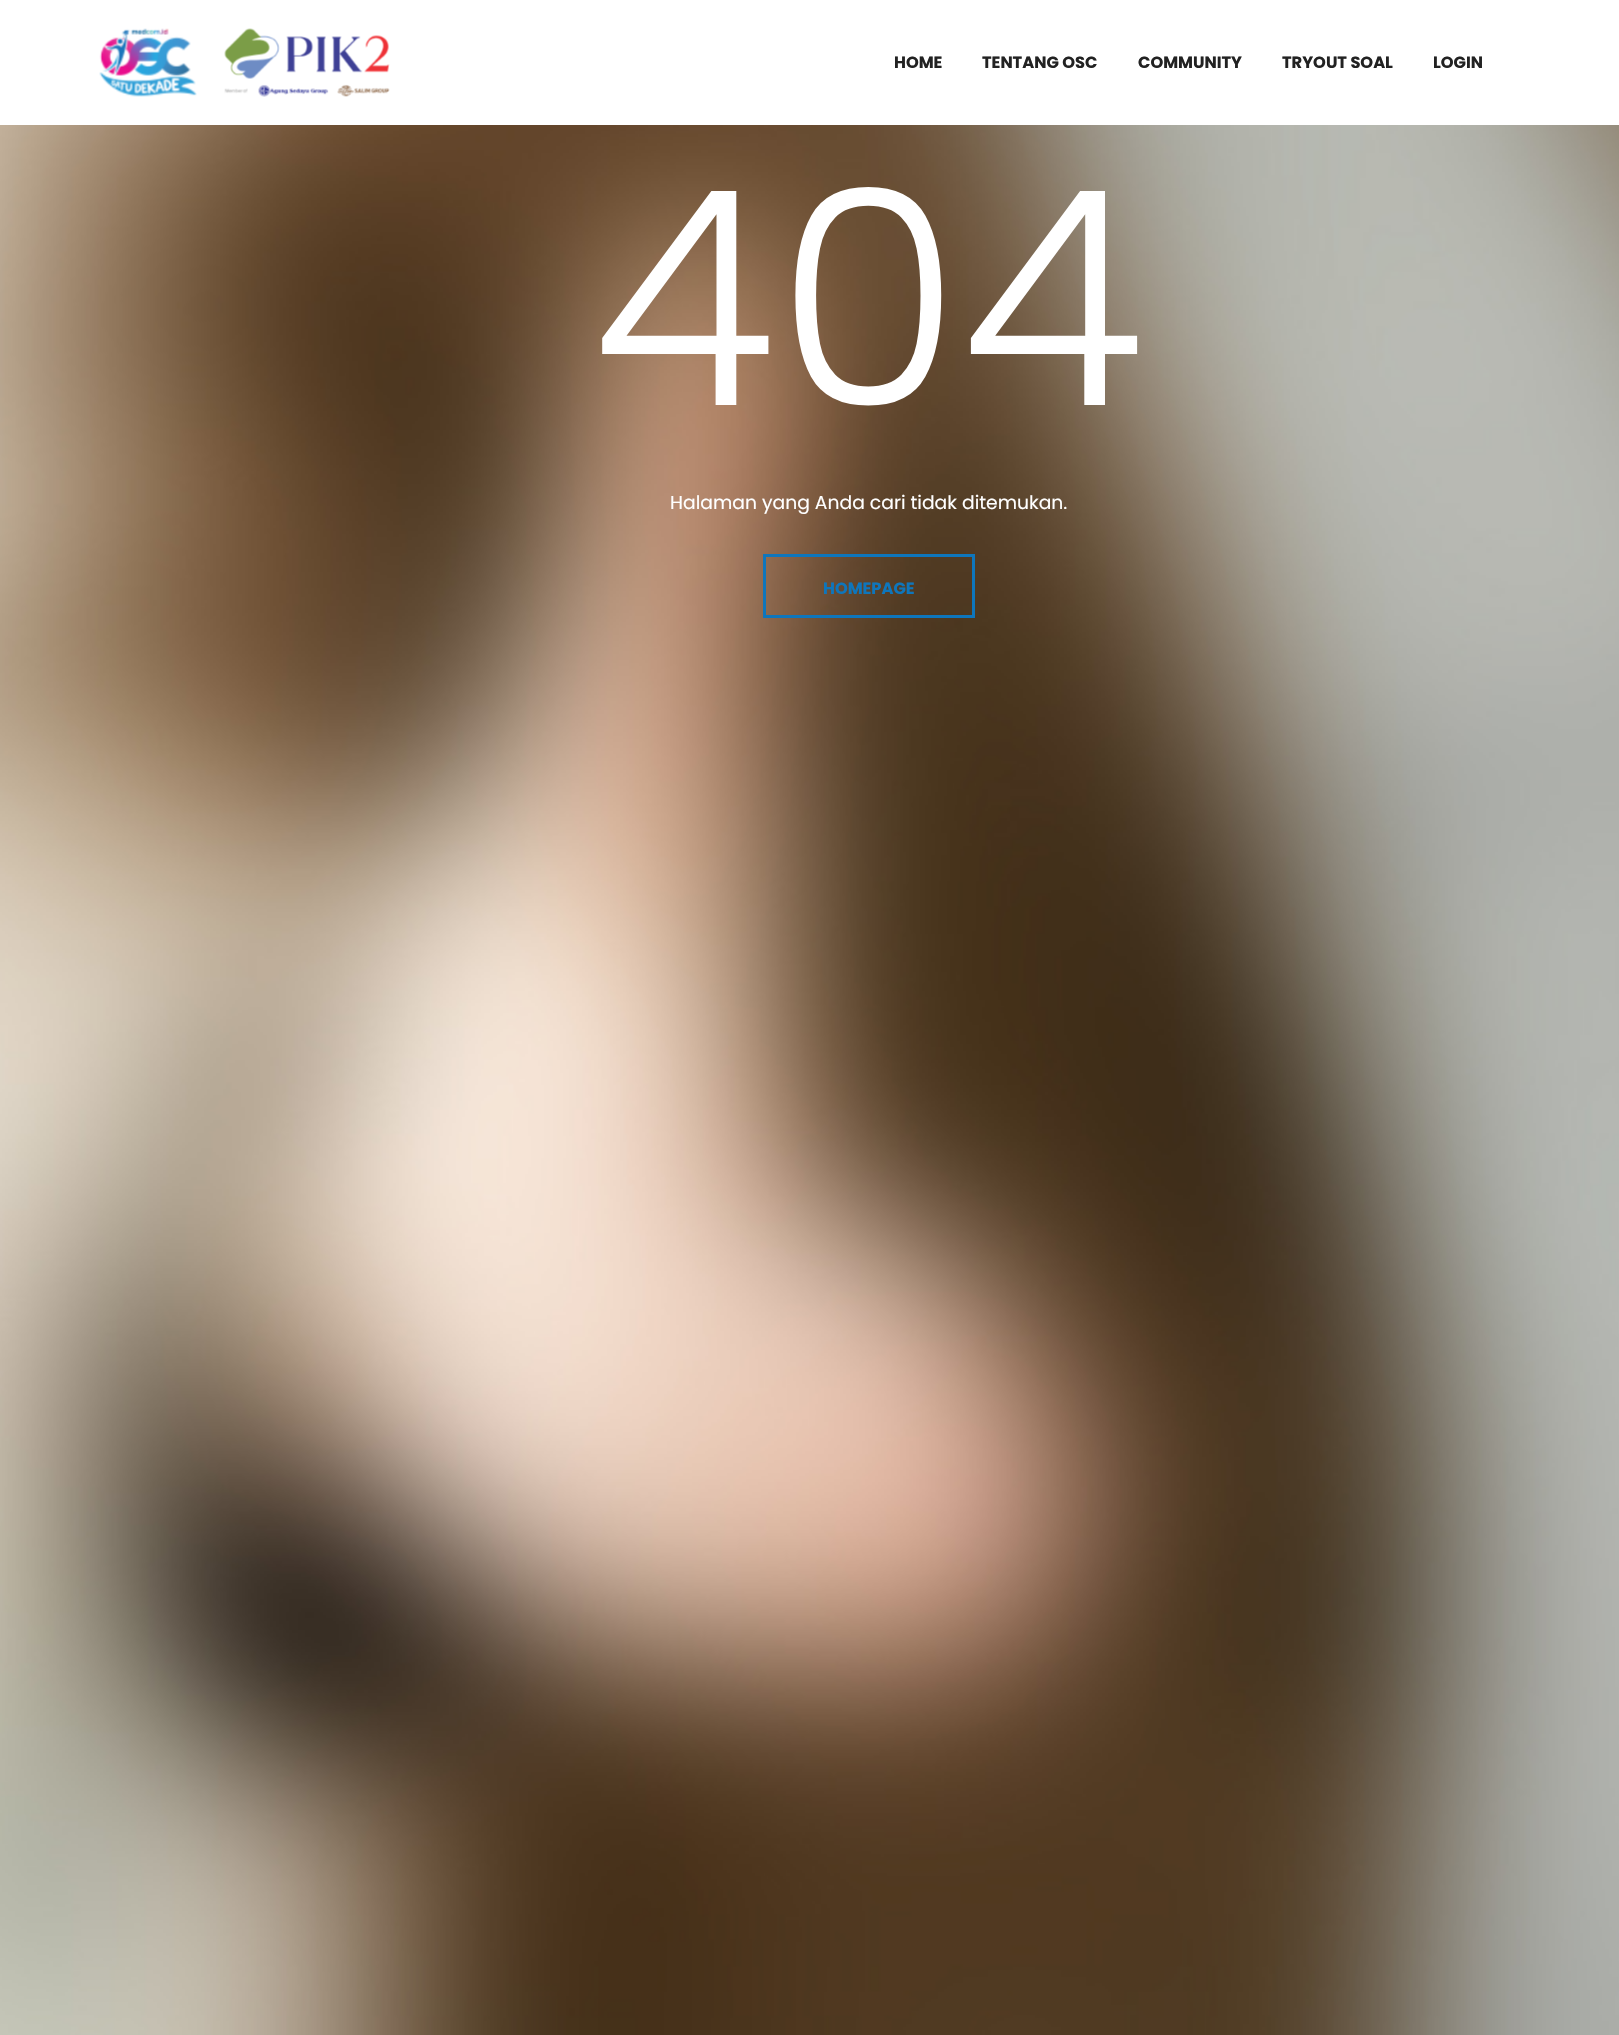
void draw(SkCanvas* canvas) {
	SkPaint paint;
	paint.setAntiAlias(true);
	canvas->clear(0xffffffff);
	canvas->drawImageRect(SkImages::DeferredFromEncodedData(SkData::MakeFromFileName("img1.png")), SkRect::MakeXYWH(99, 28, 98, 69), SkSamplingOptions());
	canvas->drawImageRect(SkImages::DeferredFromEncodedData(SkData::MakeFromFileName("img2.png")), SkRect::MakeXYWH(224, 28, 166, 69), SkSamplingOptions());
	SkFont f1(fontMgr->matchFamilyStyle("Poppins", SkFontStyle::Bold()), 16.25);
	f1.setSubpixel(true);
	paint.setColor(0xff222222);
	canvas->drawString("HOME", 894, 68, f1, paint);
	canvas->drawString("TENTANG OSC", 982, 68, f1, paint);
	canvas->drawString("COMMUNITY", 1138, 68, f1, paint);
	canvas->drawString("TRYOUT SOAL", 1282, 68, f1, paint);
	canvas->drawString("LOGIN", 1433, 68, f1, paint);
	canvas->drawImageRect(SkImages::DeferredFromEncodedData(SkData::MakeFromFileName("img3.png")), SkRect::MakeXYWH(0, 125, 1619, 1910), SkSamplingOptions());
	SkFont f2(fontMgr->matchFamilyStyle("Poppins", SkFontStyle(300, SkFontStyle::kNormal_Width, SkFontStyle::kUpright_Slant)), 300);
	f2.setSubpixel(true);
	paint.setColor(0xffffffff);
	canvas->drawString("404", 592, 405, f2, paint);
	SkFont f3(fontMgr->matchFamilyStyle("Poppins", SkFontStyle::Normal()), 18.75);
	f3.setSubpixel(true);
	canvas->drawString("Halaman yang Anda cari tidak ditemukan.", 670, 509, f3, paint);
	paint.setStroke(true);
	paint.setStrokeWidth(3);
	paint.setColor(0xff0e76bc);
	canvas->drawRect(SkRect::MakeXYWH(764.5, 555.5, 209, 61), paint);
	paint.setStroke(false);
	canvas->drawString("HOMEPAGE", 823, 594, f1, paint);
}
